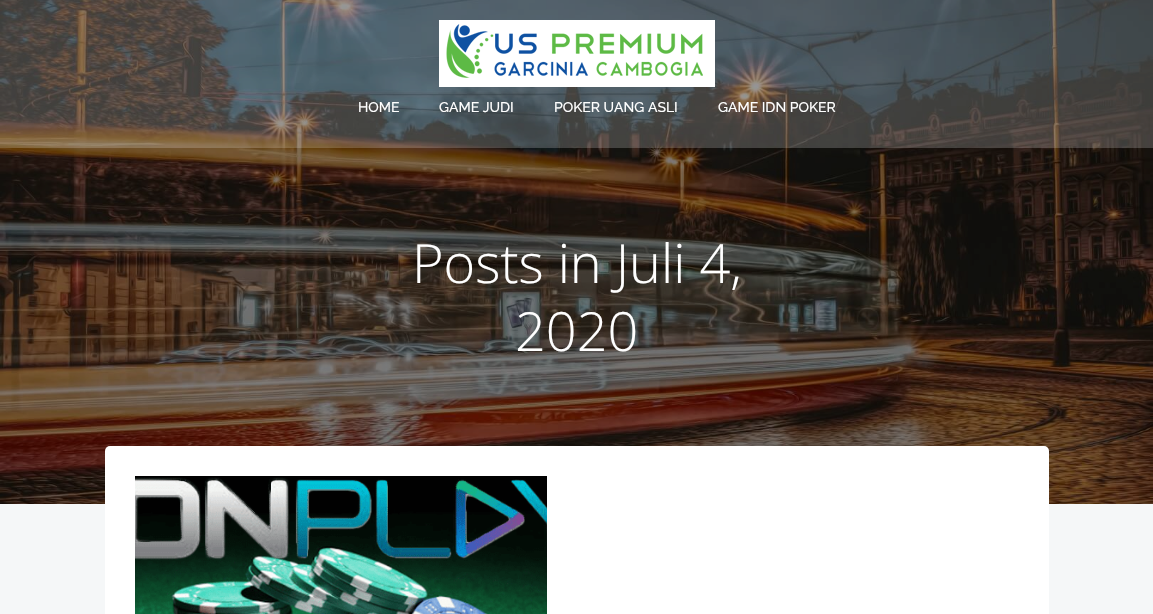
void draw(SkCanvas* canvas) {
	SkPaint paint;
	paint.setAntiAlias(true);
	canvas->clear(0xffffffff);
	canvas->drawImageRect(SkImages::DeferredFromEncodedData(SkData::MakeFromFileName("img2.png")), SkRect::MakeXYWH(0, 0, 1153, 504), SkSamplingOptions());
	paint.setColor(0x33ffffff);
	canvas->drawRect(SkRect::MakeXYWH(0, 0, 1153, 148), paint);
	canvas->drawImageRect(SkImages::DeferredFromEncodedData(SkData::MakeFromFileName("img1.png")), SkRect::MakeXYWH(439, 20, 276, 67), SkSamplingOptions());
	SkFont f1(fontMgr->matchFamilyStyle("Raleway", SkFontStyle(500, SkFontStyle::kNormal_Width, SkFontStyle::kUpright_Slant)), 14);
	f1.setSubpixel(true);
	paint.setColor(0xffffffff);
	canvas->drawString("HOME", 358, 112, f1, paint);
	canvas->drawString("GAME JUDI", 439, 112, f1, paint);
	canvas->drawString("POKER UANG ASLI", 554, 112, f1, paint);
	canvas->drawString("GAME IDN POKER", 718, 112, f1, paint);
	SkFont f2(fontMgr->matchFamilyStyle("Open Sans", SkFontStyle(300, SkFontStyle::kNormal_Width, SkFontStyle::kUpright_Slant)), 54);
	f2.setSubpixel(true);
	canvas->drawString("Posts in Juli 4,", 412, 283, f2, paint);
	canvas->drawString("2020", 515, 351, f2, paint);
	paint.setColor(0xfff5f7f8);
	canvas->drawRect(SkRect::MakeXYWH(0, 504, 1153, 110), paint);
	paint.setColor(0xffffffff);
	canvas->drawRoundRect(SkRect::MakeXYWH(105, 446, 944, 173), 5, 5, paint);
	canvas->drawImageRect(SkImages::DeferredFromEncodedData(SkData::MakeFromFileName("img3.png")), SkRect::MakeXYWH(135, 476, 412, 138), SkSamplingOptions());
}
